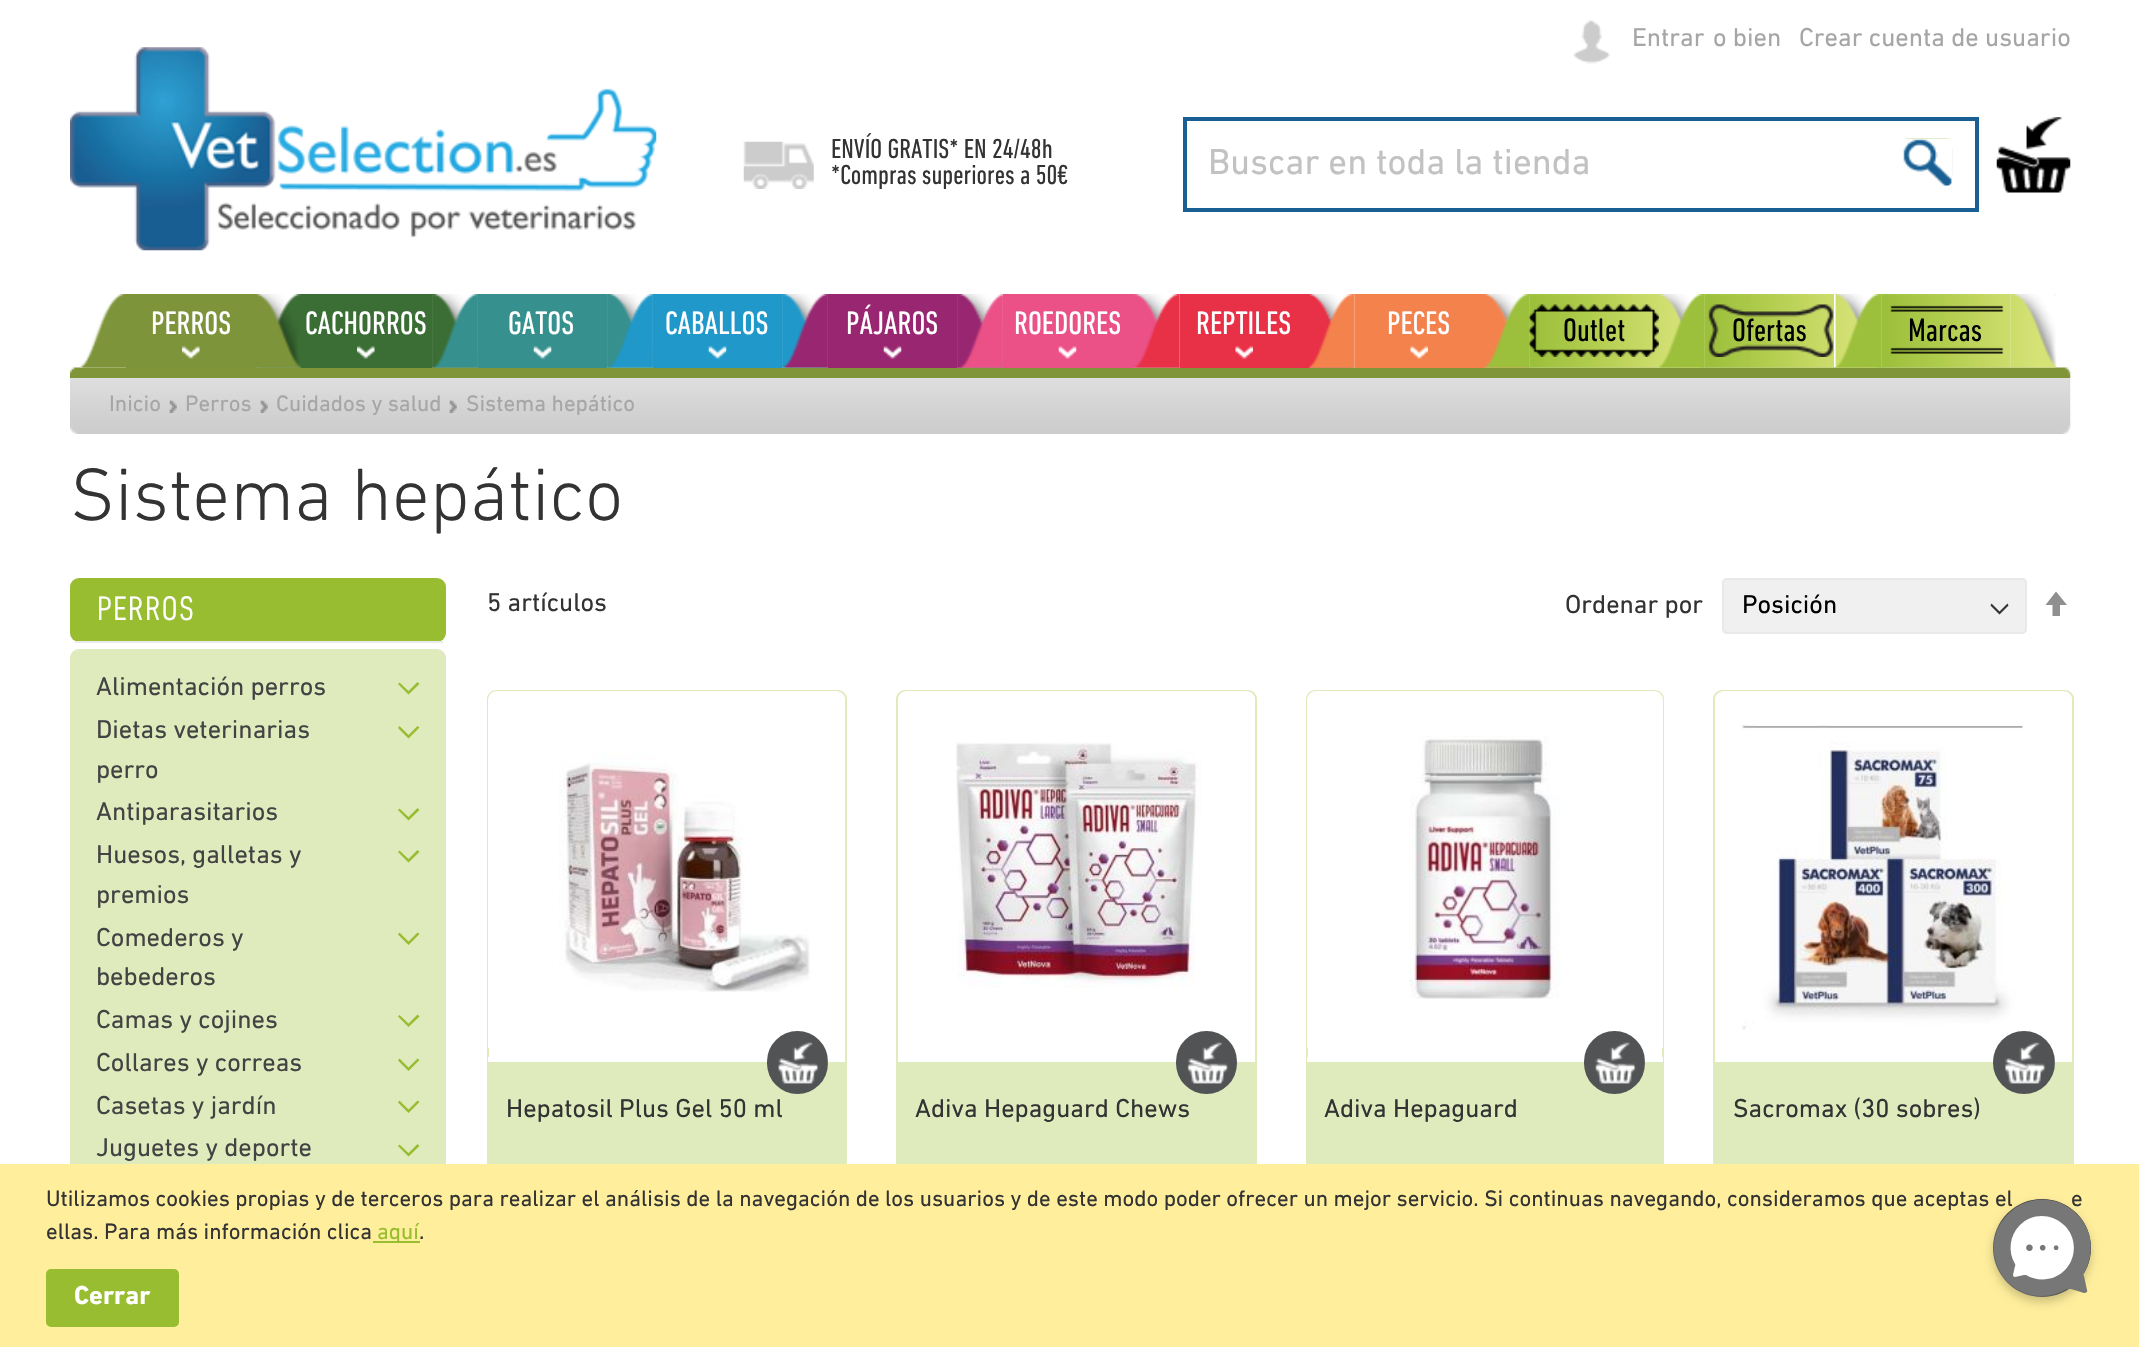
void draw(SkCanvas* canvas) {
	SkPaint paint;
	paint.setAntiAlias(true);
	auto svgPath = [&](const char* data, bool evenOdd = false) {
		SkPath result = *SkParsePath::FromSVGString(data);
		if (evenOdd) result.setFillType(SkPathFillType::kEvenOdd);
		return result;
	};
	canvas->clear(0xffffffff);
	canvas->drawImageRect(SkImages::DeferredFromEncodedData(SkData::MakeFromFileName("img1.png")), SkRect::MakeXYWH(1573, 19, 38, 45), SkSamplingOptions());
	SkFont f1(fontMgr->matchFamilyStyle("DIN Next", SkFontStyle::Normal()), 26.25);
	f1.setSubpixel(true);
	paint.setColor(0xffa6a6a6);
	canvas->drawString("Entrar", 1632, 46, f1, paint);
	canvas->drawString("o bien", 1713, 46, f1, paint);
	canvas->drawString("Crear cuenta de usuario", 1799, 46, f1, paint);
	canvas->drawImageRect(SkImages::DeferredFromEncodedData(SkData::MakeFromFileName("img2.png")), SkRect::MakeXYWH(70, 47, 587, 204), SkSamplingOptions());
	canvas->drawImageRect(SkImages::DeferredFromEncodedData(SkData::MakeFromFileName("img3.png")), SkRect::MakeXYWH(743, 141, 71, 48), SkSamplingOptions());
	SkFont f2(fontMgr->matchFamilyStyle("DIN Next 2", SkFontStyle::Normal()), 28);
	f2.setSubpixel(true);
	paint.setColor(0xff333333);
	canvas->drawString("ENVÍO GRATIS* EN 24/48h", 831, 158, f2, paint);
	canvas->drawString("*Compras superiores a 50€", 831, 184, f2, paint);
	paint.setStroke(true);
	paint.setStrokeWidth(4);
	paint.setColor(0xff195f93);
	canvas->drawRect(SkRect::MakeXYWH(1185, 119, 792, 91), paint);
	SkFont f3(fontMgr->matchFamilyStyle("DIN Next", SkFontStyle::Normal()), 36.75);
	f3.setSubpixel(true);
	paint.setStroke(false);
	paint.setColor(0xffc2c2c2);
	canvas->drawString("Buscar en toda la tienda", 1208, 174, f3, paint);
	canvas->drawImageRect(SkImages::DeferredFromEncodedData(SkData::MakeFromFileName("img4.png")), SkRect::MakeXYWH(1903, 138, 50, 48), SkSamplingOptions());
	canvas->drawImageRect(SkImages::DeferredFromEncodedData(SkData::MakeFromFileName("img5.png")), SkRect::MakeXYWH(1996, 117, 75, 76), SkSamplingOptions());
	canvas->drawImageRect(SkImages::DeferredFromEncodedData(SkData::MakeFromFileName("img6.png")), SkRect::MakeXYWH(70, 367, 2001, 11), SkSamplingOptions());
	paint.setColor(0xff7e943a);
	canvas->drawRect(SkRect::MakeXYWH(126, 294, 130, 74), paint);
	canvas->drawImageRect(SkImages::DeferredFromEncodedData(SkData::MakeFromFileName("img7.png")), SkRect::MakeXYWH(80, 294, 46, 74), SkSamplingOptions());
	canvas->drawImageRect(SkImages::DeferredFromEncodedData(SkData::MakeFromFileName("img8.png")), SkRect::MakeXYWH(182, 346, 18, 13), SkSamplingOptions());
	SkFont f4(fontMgr->matchFamilyStyle("DIN Next 2", SkFontStyle::Normal()), 33);
	f4.setSubpixel(true);
	paint.setColor(0xffffffff);
	canvas->drawString("PERROS", 151, 334, f4, paint);
	canvas->drawImageRect(SkImages::DeferredFromEncodedData(SkData::MakeFromFileName("img12.png")), SkRect::MakeXYWH(256, 367, 45, 1), SkSamplingOptions());
	canvas->drawImageRect(SkImages::DeferredFromEncodedData(SkData::MakeFromFileName("img9.png")), SkRect::MakeXYWH(256, 294, 45, 74), SkSamplingOptions());
	paint.setColor(0xff3b6e35);
	canvas->drawRect(SkRect::MakeXYWH(301, 294, 131, 74), paint);
	canvas->drawImageRect(SkImages::DeferredFromEncodedData(SkData::MakeFromFileName("img10.png")), SkRect::MakeXYWH(357, 346, 18, 13), SkSamplingOptions());
	paint.setColor(0xffffffff);
	canvas->drawString("CACHORROS", 305, 334, f4, paint);
	canvas->drawImageRect(SkImages::DeferredFromEncodedData(SkData::MakeFromFileName("img11.png")), SkRect::MakeXYWH(432, 294, 46, 74), SkSamplingOptions());
	paint.setColor(0xff36908e);
	canvas->drawRect(SkRect::MakeXYWH(478, 294, 129, 74), paint);
	canvas->drawImageRect(SkImages::DeferredFromEncodedData(SkData::MakeFromFileName("img13.png")), SkRect::MakeXYWH(432, 294, 46, 74), SkSamplingOptions());
	canvas->drawImageRect(SkImages::DeferredFromEncodedData(SkData::MakeFromFileName("img14.png")), SkRect::MakeXYWH(533, 346, 19, 13), SkSamplingOptions());
	paint.setColor(0xffffffff);
	canvas->drawString("GATOS", 508, 334, f4, paint);
	canvas->drawImageRect(SkImages::DeferredFromEncodedData(SkData::MakeFromFileName("img15.png")), SkRect::MakeXYWH(607, 294, 46, 74), SkSamplingOptions());
	paint.setColor(0xff2099ca);
	canvas->drawRect(SkRect::MakeXYWH(653, 294, 129, 74), paint);
	canvas->drawImageRect(SkImages::DeferredFromEncodedData(SkData::MakeFromFileName("img16.png")), SkRect::MakeXYWH(607, 294, 46, 74), SkSamplingOptions());
	canvas->drawImageRect(SkImages::DeferredFromEncodedData(SkData::MakeFromFileName("img17.png")), SkRect::MakeXYWH(708, 346, 19, 13), SkSamplingOptions());
	paint.setColor(0xffffffff);
	canvas->drawString("CABALLOS", 665, 334, f4, paint);
	canvas->drawImageRect(SkImages::DeferredFromEncodedData(SkData::MakeFromFileName("img18.png")), SkRect::MakeXYWH(782, 294, 46, 74), SkSamplingOptions());
	paint.setColor(0xff992671);
	canvas->drawRect(SkRect::MakeXYWH(828, 294, 129, 74), paint);
	canvas->drawImageRect(SkImages::DeferredFromEncodedData(SkData::MakeFromFileName("img19.png")), SkRect::MakeXYWH(782, 294, 46, 74), SkSamplingOptions());
	canvas->drawImageRect(SkImages::DeferredFromEncodedData(SkData::MakeFromFileName("img20.png")), SkRect::MakeXYWH(883, 346, 19, 13), SkSamplingOptions());
	paint.setColor(0xffffffff);
	canvas->drawString("PÁJAROS", 846, 334, f4, paint);
	canvas->drawImageRect(SkImages::DeferredFromEncodedData(SkData::MakeFromFileName("img21.png")), SkRect::MakeXYWH(957, 294, 46, 74), SkSamplingOptions());
	paint.setColor(0xffeb5187);
	canvas->drawRect(SkRect::MakeXYWH(1003, 294, 131, 74), paint);
	canvas->drawImageRect(SkImages::DeferredFromEncodedData(SkData::MakeFromFileName("img22.png")), SkRect::MakeXYWH(957, 294, 46, 74), SkSamplingOptions());
	canvas->drawImageRect(SkImages::DeferredFromEncodedData(SkData::MakeFromFileName("img23.png")), SkRect::MakeXYWH(1058, 346, 19, 13), SkSamplingOptions());
	paint.setColor(0xffffffff);
	canvas->drawString("ROEDORES", 1014, 334, f4, paint);
	canvas->drawImageRect(SkImages::DeferredFromEncodedData(SkData::MakeFromFileName("img24.png")), SkRect::MakeXYWH(1134, 294, 46, 74), SkSamplingOptions());
	paint.setColor(0xffe83047);
	canvas->drawRect(SkRect::MakeXYWH(1180, 294, 129, 74), paint);
	canvas->drawImageRect(SkImages::DeferredFromEncodedData(SkData::MakeFromFileName("img25.png")), SkRect::MakeXYWH(1134, 294, 46, 74), SkSamplingOptions());
	canvas->drawImageRect(SkImages::DeferredFromEncodedData(SkData::MakeFromFileName("img26.png")), SkRect::MakeXYWH(1235, 346, 18, 13), SkSamplingOptions());
	paint.setColor(0xffffffff);
	canvas->drawString("REPTILES", 1196, 334, f4, paint);
	canvas->drawImageRect(SkImages::DeferredFromEncodedData(SkData::MakeFromFileName("img27.png")), SkRect::MakeXYWH(1309, 294, 46, 74), SkSamplingOptions());
	paint.setColor(0xfff4824d);
	canvas->drawRect(SkRect::MakeXYWH(1355, 294, 129, 74), paint);
	canvas->drawImageRect(SkImages::DeferredFromEncodedData(SkData::MakeFromFileName("img28.png")), SkRect::MakeXYWH(1309, 294, 46, 74), SkSamplingOptions());
	canvas->drawImageRect(SkImages::DeferredFromEncodedData(SkData::MakeFromFileName("img29.png")), SkRect::MakeXYWH(1410, 346, 18, 13), SkSamplingOptions());
	paint.setColor(0xffffffff);
	canvas->drawString("PECES", 1387, 334, f4, paint);
	canvas->drawImageRect(SkImages::DeferredFromEncodedData(SkData::MakeFromFileName("img30.png")), SkRect::MakeXYWH(1484, 294, 46, 74), SkSamplingOptions());
	canvas->drawImageRect(SkImages::DeferredFromEncodedData(SkData::MakeFromFileName("img31.png")), SkRect::MakeXYWH(1529, 294, 130, 74), SkSamplingOptions());
	canvas->drawImageRect(SkImages::DeferredFromEncodedData(SkData::MakeFromFileName("img32.png")), SkRect::MakeXYWH(1484, 294, 46, 74), SkSamplingOptions());
	canvas->drawImageRect(SkImages::DeferredFromEncodedData(SkData::MakeFromFileName("img33.png")), SkRect::MakeXYWH(1529, 304, 130, 53), SkSamplingOptions());
	paint.setColor(0xff000000);
	canvas->drawString("Outlet", 1563, 341, f4, paint);
	canvas->drawImageRect(SkImages::DeferredFromEncodedData(SkData::MakeFromFileName("img34.png")), SkRect::MakeXYWH(1659, 294, 46, 74), SkSamplingOptions());
	canvas->drawImageRect(SkImages::DeferredFromEncodedData(SkData::MakeFromFileName("img35.png")), SkRect::MakeXYWH(1704, 294, 130, 74), SkSamplingOptions());
	canvas->drawImageRect(SkImages::DeferredFromEncodedData(SkData::MakeFromFileName("img36.png")), SkRect::MakeXYWH(1659, 294, 46, 74), SkSamplingOptions());
	canvas->drawImageRect(SkImages::DeferredFromEncodedData(SkData::MakeFromFileName("img37.png")), SkRect::MakeXYWH(1708, 304, 126, 53), SkSamplingOptions());
	canvas->drawString("Ofertas", 1732, 341, f4, paint);
	canvas->drawImageRect(SkImages::DeferredFromEncodedData(SkData::MakeFromFileName("img38.png")), SkRect::MakeXYWH(1835, 294, 47, 74), SkSamplingOptions());
	canvas->drawImageRect(SkImages::DeferredFromEncodedData(SkData::MakeFromFileName("img39.png")), SkRect::MakeXYWH(1881, 294, 130, 74), SkSamplingOptions());
	canvas->drawImageRect(SkImages::DeferredFromEncodedData(SkData::MakeFromFileName("img40.png")), SkRect::MakeXYWH(1835, 294, 47, 74), SkSamplingOptions());
	canvas->drawImageRect(SkImages::DeferredFromEncodedData(SkData::MakeFromFileName("img41.png")), SkRect::MakeXYWH(1890, 305, 114, 49), SkSamplingOptions());
	canvas->drawString("Marcas", 1908, 341, f4, paint);
	canvas->drawImageRect(SkImages::DeferredFromEncodedData(SkData::MakeFromFileName("img42.png")), SkRect::MakeXYWH(2010, 294, 47, 74), SkSamplingOptions());
	canvas->drawImageRect(SkImages::DeferredFromEncodedData(SkData::MakeFromFileName("img43.png")), SkRect::MakeXYWH(70, 378, 2001, 56), SkSamplingOptions());
	SkFont f5(fontMgr->matchFamilyStyle("DIN Next", SkFontStyle::Normal()), 22.75);
	f5.setSubpixel(true);
	paint.setColor(0xffa6a6a6);
	canvas->drawString("Inicio", 109, 411, f5, paint);
	canvas->drawImageRect(SkImages::DeferredFromEncodedData(SkData::MakeFromFileName("img44.png")), SkRect::MakeXYWH(169, 400, 8, 13), SkSamplingOptions());
	canvas->drawString("Perros", 185, 411, f5, paint);
	canvas->drawImageRect(SkImages::DeferredFromEncodedData(SkData::MakeFromFileName("img45.png")), SkRect::MakeXYWH(260, 400, 8, 13), SkSamplingOptions());
	canvas->drawString("Cuidados y salud", 276, 411, f5, paint);
	canvas->drawImageRect(SkImages::DeferredFromEncodedData(SkData::MakeFromFileName("img45.png")), SkRect::MakeXYWH(449, 400, 8, 13), SkSamplingOptions());
	canvas->drawString("Sistema hepático", 466, 411, f5, paint);
	SkFont f6(fontMgr->matchFamilyStyle("DIN Next", SkFontStyle(300, SkFontStyle::kNormal_Width, SkFontStyle::kUpright_Slant)), 75.25);
	f6.setSubpixel(true);
	paint.setColor(0xff333333);
	canvas->drawString("Sistema hepático", 70, 520, f6, paint);
	paint.setColor(0xff99bd30);
	canvas->drawRoundRect(SkRect::MakeXYWH(70, 578, 376, 64), 9, 9, paint);
	paint.setColor(0xffe9e9e9);
	canvas->drawRect(SkRect::MakeXYWH(75, 641, 368, 2), paint);
	SkFont f7(fontMgr->matchFamilyStyle("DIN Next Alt", SkFontStyle(300, SkFontStyle::kNormal_Width, SkFontStyle::kUpright_Slant)), 45.5);
	f7.setSubpixel(true);
	paint.setColor(0xffffffff);
	canvas->drawString("perros", 96, 620, f7, paint);
	paint.setColor(0xffdfebbd);
	canvas->drawRoundRect(SkRect::MakeXYWH(70, 649, 376, 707), 9, 9, paint);
	paint.setColor(0xff434343);
	canvas->drawString("Alimentación perros", 96, 695, f1, paint);
	paint.setColor(0xff99bd30);
	canvas->drawPath(svgPath("M408.5 691L399.5 682.5L398 684L408.5 694.5L419.5 684L417.5 682Z"), paint);
	paint.setColor(0xff434343);
	canvas->drawString("Dietas veterinarias", 96, 738, f1, paint);
	paint.setColor(0xff99bd30);
	canvas->drawPath(svgPath("M408.5 735L399.5 726L398 728L408.5 738.5L419.5 727.5L417.5 726Z"), paint);
	paint.setColor(0xff434343);
	canvas->drawString("perro", 96, 778, f1, paint);
	canvas->drawString("Antiparasitarios", 96, 820, f1, paint);
	paint.setColor(0xff99bd30);
	canvas->drawPath(svgPath("M408.5 817L399.5 808.5L398 810L408.5 820.5L419.5 810L417.5 808Z"), paint);
	paint.setColor(0xff434343);
	canvas->drawString("Huesos, galletas y", 96, 863, f1, paint);
	paint.setColor(0xff99bd30);
	canvas->drawPath(svgPath("M408.5 859L399.5 850.5L398 852L408.5 862.5L419.5 852L417.5 850Z"), paint);
	paint.setColor(0xff434343);
	canvas->drawString("premios", 96, 903, f1, paint);
	canvas->drawString("Comederos y", 96, 946, f1, paint);
	paint.setColor(0xff99bd30);
	canvas->drawPath(svgPath("M408.5 941.5L399.5 932.5L398 934.5L408.5 945L419.5 934L417.5 932.5Z"), paint);
	paint.setColor(0xff434343);
	canvas->drawString("bebederos", 96, 985, f1, paint);
	canvas->drawString("Camas y cojines", 96, 1028, f1, paint);
	paint.setColor(0xff99bd30);
	canvas->drawPath(svgPath("M408.5 1023.5L399.5 1015L398 1016.5L408.5 1027L419.5 1016.5L417.5 1014.5Z"), paint);
	paint.setColor(0xff434343);
	canvas->drawString("Collares y correas", 96, 1071, f1, paint);
	paint.setColor(0xff99bd30);
	canvas->drawPath(svgPath("M408.5 1067.5L399.5 1058.5L398 1060.5L408.5 1071L419.5 1060L417.5 1058.5Z"), paint);
	paint.setColor(0xff434343);
	canvas->drawString("Casetas y jardín", 96, 1114, f1, paint);
	paint.setColor(0xff99bd30);
	canvas->drawPath(svgPath("M408.5 1109.5L399.5 1100.5L398 1102.5L408.5 1113L419.5 1102L417.5 1100.5Z"), paint);
	paint.setColor(0xff434343);
	canvas->drawString("Juguetes y deporte", 96, 1156, f1, paint);
	paint.setColor(0xff99bd30);
	canvas->drawPath(svgPath("M408.5 1153L399.5 1144.5L398 1146L408.5 1156.5L419.5 1146L417.5 1144Z"), paint);
	paint.setColor(0xff333333);
	canvas->drawString("5 artículos", 487, 611, f1, paint);
	canvas->drawString("Ordenar por", 1565, 613, f1, paint);
	paint.setColor(0xfff0f0f0);
	canvas->drawRoundRect(SkRect::MakeXYWH(1722, 578, 305, 56), 5, 5, paint);
	paint.setColor(0xff333333);
	canvas->drawPath(svgPath("M1999.5 614.5L2008.5 605.5L2007.5 603.5L1999.5 611.5L1991.5 603.5L1990.5 605.5Z", true), paint);
	paint.setStroke(true);
	paint.setStrokeWidth(2);
	paint.setColor(0xffe9e9e9);
	canvas->drawRoundRect(SkRect::MakeXYWH(1723, 579, 303, 54), 4, 4, paint);
	paint.setStroke(false);
	paint.setColor(0xff000000);
	canvas->drawString("Posición", 1742, 613, f1, paint);
	paint.setColor(0xff8f8f8f);
	canvas->drawPath(svgPath("M2056 591.5L2045.5 605H2052.5V616H2060V605H2067Z"), paint);
	paint.setStroke(true);
	paint.setColor(0xffdfebbd);
	canvas->drawRoundRect(SkRect::MakeXYWH(488, 691, 358, 570), 8, 8, paint);
	paint.setStroke(false);
	paint.setColor(0xffffffff);
	canvas->drawPath(svgPath("M497 691H836C841 691 845 695 845 700V1048H488V700C488 695 492 691 497 691Z"), paint);
	canvas->drawImageRect(SkImages::DeferredFromEncodedData(SkData::MakeFromFileName("img46.png")), SkRect::MakeXYWH(559, 752, 251, 240), SkSamplingOptions());
	paint.setColor(0xffdfebbd);
	canvas->drawRect(SkRect::MakeXYWH(489, 1062, 356, 102), paint);
	paint.setColor(0xffffffff);
	canvas->drawRect(SkRect::MakeXYWH(488, 1057, 1, 5), paint);
	paint.setColor(0xff515354);
	canvas->drawRoundRect(SkRect::MakeXYWH(767, 1031, 61, 63), 30.5, 30.5, paint);
	canvas->drawImageRect(SkImages::DeferredFromEncodedData(SkData::MakeFromFileName("img47.png")), SkRect::MakeXYWH(778, 1042, 50, 42), SkSamplingOptions());
	paint.setColor(0xff333333);
	canvas->drawString("Hepatosil Plus Gel 50 ml", 506, 1117, f1, paint);
	paint.setStroke(true);
	paint.setColor(0xffdfebbd);
	canvas->drawRoundRect(SkRect::MakeXYWH(897, 691, 359, 570), 8, 8, paint);
	paint.setStroke(false);
	paint.setColor(0xffffffff);
	canvas->drawPath(svgPath("M907 691H1246C1251 691 1255 695 1255 700V1048H898V700C898 695 902 691 907 691Z"), paint);
	canvas->drawImageRect(SkImages::DeferredFromEncodedData(SkData::MakeFromFileName("img48.png")), SkRect::MakeXYWH(956, 742, 246, 246), SkSamplingOptions());
	paint.setColor(0xffdfebbd);
	canvas->drawRect(SkRect::MakeXYWH(898, 1062, 357, 102), paint);
	paint.setColor(0xff515354);
	canvas->drawRoundRect(SkRect::MakeXYWH(1176, 1031, 61, 63), 30.5, 30.5, paint);
	canvas->drawImageRect(SkImages::DeferredFromEncodedData(SkData::MakeFromFileName("img49.png")), SkRect::MakeXYWH(1187, 1042, 51, 42), SkSamplingOptions());
	paint.setColor(0xff333333);
	canvas->drawString("Adiva Hepaguard Chews", 915, 1117, f1, paint);
	paint.setStroke(true);
	paint.setColor(0xffdfebbd);
	canvas->drawRoundRect(SkRect::MakeXYWH(1307, 691, 356, 570), 8, 8, paint);
	paint.setStroke(false);
	paint.setColor(0xffffffff);
	canvas->drawPath(svgPath("M1316 691H1654C1659 691 1663 695 1663 700V1048H1307V700C1307 695 1311 691 1316 691Z"), paint);
	canvas->drawImageRect(SkImages::DeferredFromEncodedData(SkData::MakeFromFileName("img50.png")), SkRect::MakeXYWH(1409, 736, 151, 263), SkSamplingOptions());
	paint.setColor(0xffdfebbd);
	canvas->drawRect(SkRect::MakeXYWH(1308, 1062, 354, 102), paint);
	paint.setColor(0xffffffff);
	canvas->drawRect(SkRect::MakeXYWH(1307, 1057, 356, 5), paint);
	paint.setColor(0xff515354);
	canvas->drawRoundRect(SkRect::MakeXYWH(1584, 1031, 61, 63), 30.5, 30.5, paint);
	canvas->drawImageRect(SkImages::DeferredFromEncodedData(SkData::MakeFromFileName("img51.png")), SkRect::MakeXYWH(1595, 1042, 50, 42), SkSamplingOptions());
	paint.setColor(0xff333333);
	canvas->drawString("Adiva Hepaguard", 1324, 1117, f1, paint);
	paint.setStroke(true);
	paint.setColor(0xffdfebbd);
	canvas->drawRoundRect(SkRect::MakeXYWH(1714, 691, 359, 570), 8, 8, paint);
	paint.setStroke(false);
	paint.setColor(0xffffffff);
	canvas->drawPath(svgPath("M1724 691H2063C2068 691 2072 695 2072 700V1048H1715V700C1715 695 1719 691 1724 691Z"), paint);
	canvas->drawImageRect(SkImages::DeferredFromEncodedData(SkData::MakeFromFileName("img52.png")), SkRect::MakeXYWH(1741, 724, 282, 306), SkSamplingOptions());
	paint.setColor(0xffdfebbd);
	canvas->drawRect(SkRect::MakeXYWH(1715, 1062, 357, 102), paint);
	paint.setColor(0xff515354);
	canvas->drawRoundRect(SkRect::MakeXYWH(1993, 1031, 62, 63), 31, 31, paint);
	canvas->drawImageRect(SkImages::DeferredFromEncodedData(SkData::MakeFromFileName("img53.png")), SkRect::MakeXYWH(2004, 1042, 51, 42), SkSamplingOptions());
	paint.setColor(0xff333333);
	canvas->drawString("Sacromax (30 sobres)", 1733, 1117, f1, paint);
	paint.setColor(0xffffee9c);
	canvas->drawRect(SkRect::MakeXYWH(0, 1164, 2139, 183), paint);
	paint.setColor(0x33000000);
	paint.setMaskFilter(SkMaskFilter::MakeBlur(kNormal_SkBlurStyle, 5));
	canvas->drawRoundRect(SkRect::MakeXYWH(1993, 1204, 98, 98), 49, 49, paint);
	paint.setMaskFilter(nullptr);
	paint.setColor(0xff333333);
	canvas->drawString("Utilizamos cookies propias y de terceros para realizar el análisis de la navegación de los usuarios y de este modo poder ofrecer un mejor servicio. Si continuas navegando, consideramos que aceptas el", 46, 1206, f5, paint);
	canvas->drawString("e", 2071, 1206, f5, paint);
	{
		const SkColor colors[] = {0xff777777, 0xff222222};
		const float stops[] = {0, 1};
		const SkPoint ends[] = {{1993, 1297}, {2091, 1199}};
		paint.setShader(SkGradientShader::MakeLinear(ends, colors, stops, 2, SkTileMode::kClamp));
		paint.setAlpha(255);
	}
	canvas->drawCircle(2042, 1248, 49, paint);
	paint.setShader(nullptr);
	paint.setColor(0xff777777);
	canvas->drawPath(svgPath("M2077 1214C2057 1194 2026 1195 2007 1215C1989 1234 1990 1263 2008 1282C2024 1298 2048 1300 2067 1289C2068 1289 2069 1289 2071 1289L2084 1293C2086 1293 2088 1292 2087 1290L2084 1276C2083 1275 2083 1274 2084 1273C2095 1254 2093 1230 2077 1214Z"), paint);
	paint.setColor(0xffffffff);
	canvas->drawPath(svgPath("M2065 1270C2077 1258 2077 1237 2064 1225C2051 1213 2032 1213 2020 1225C2009 1236 2008 1252 2015 1264C2015 1265 2016 1265 2015 1266L2013 1275C2013 1276 2014 1277 2015 1277L2024 1275H2026C2038 1282 2054 1281 2065 1270Z"), paint);
	canvas->drawImageRect(SkImages::DeferredFromEncodedData(SkData::MakeFromFileName("img54.png")), SkRect::MakeXYWH(2026, 1244, 33, 7), SkSamplingOptions());
	paint.setColor(0xff333333);
	canvas->drawString("ellas. Para más información clica", 46, 1239, f5, paint);
	paint.setColor(0xff99bd30);
	canvas->drawRect(SkRect::MakeXYWH(373, 1241, 47, 2), paint);
	canvas->drawString("aquí", 377, 1239, f5, paint);
	paint.setColor(0xff333333);
	canvas->drawString(".", 419, 1239, f5, paint);
	paint.setColor(0xff99bd30);
	canvas->drawRoundRect(SkRect::MakeXYWH(47, 1270, 131, 56), 4, 4, paint);
	paint.setStroke(true);
	canvas->drawRoundRect(SkRect::MakeXYWH(47, 1270, 131, 56), 4, 4, paint);
	SkFont f8(fontMgr->matchFamilyStyle("DIN Next", SkFontStyle::Bold()), 26.25);
	f8.setSubpixel(true);
	paint.setStroke(false);
	paint.setColor(0xffffffff);
	canvas->drawString("Cerrar", 74, 1304, f8, paint);
}
